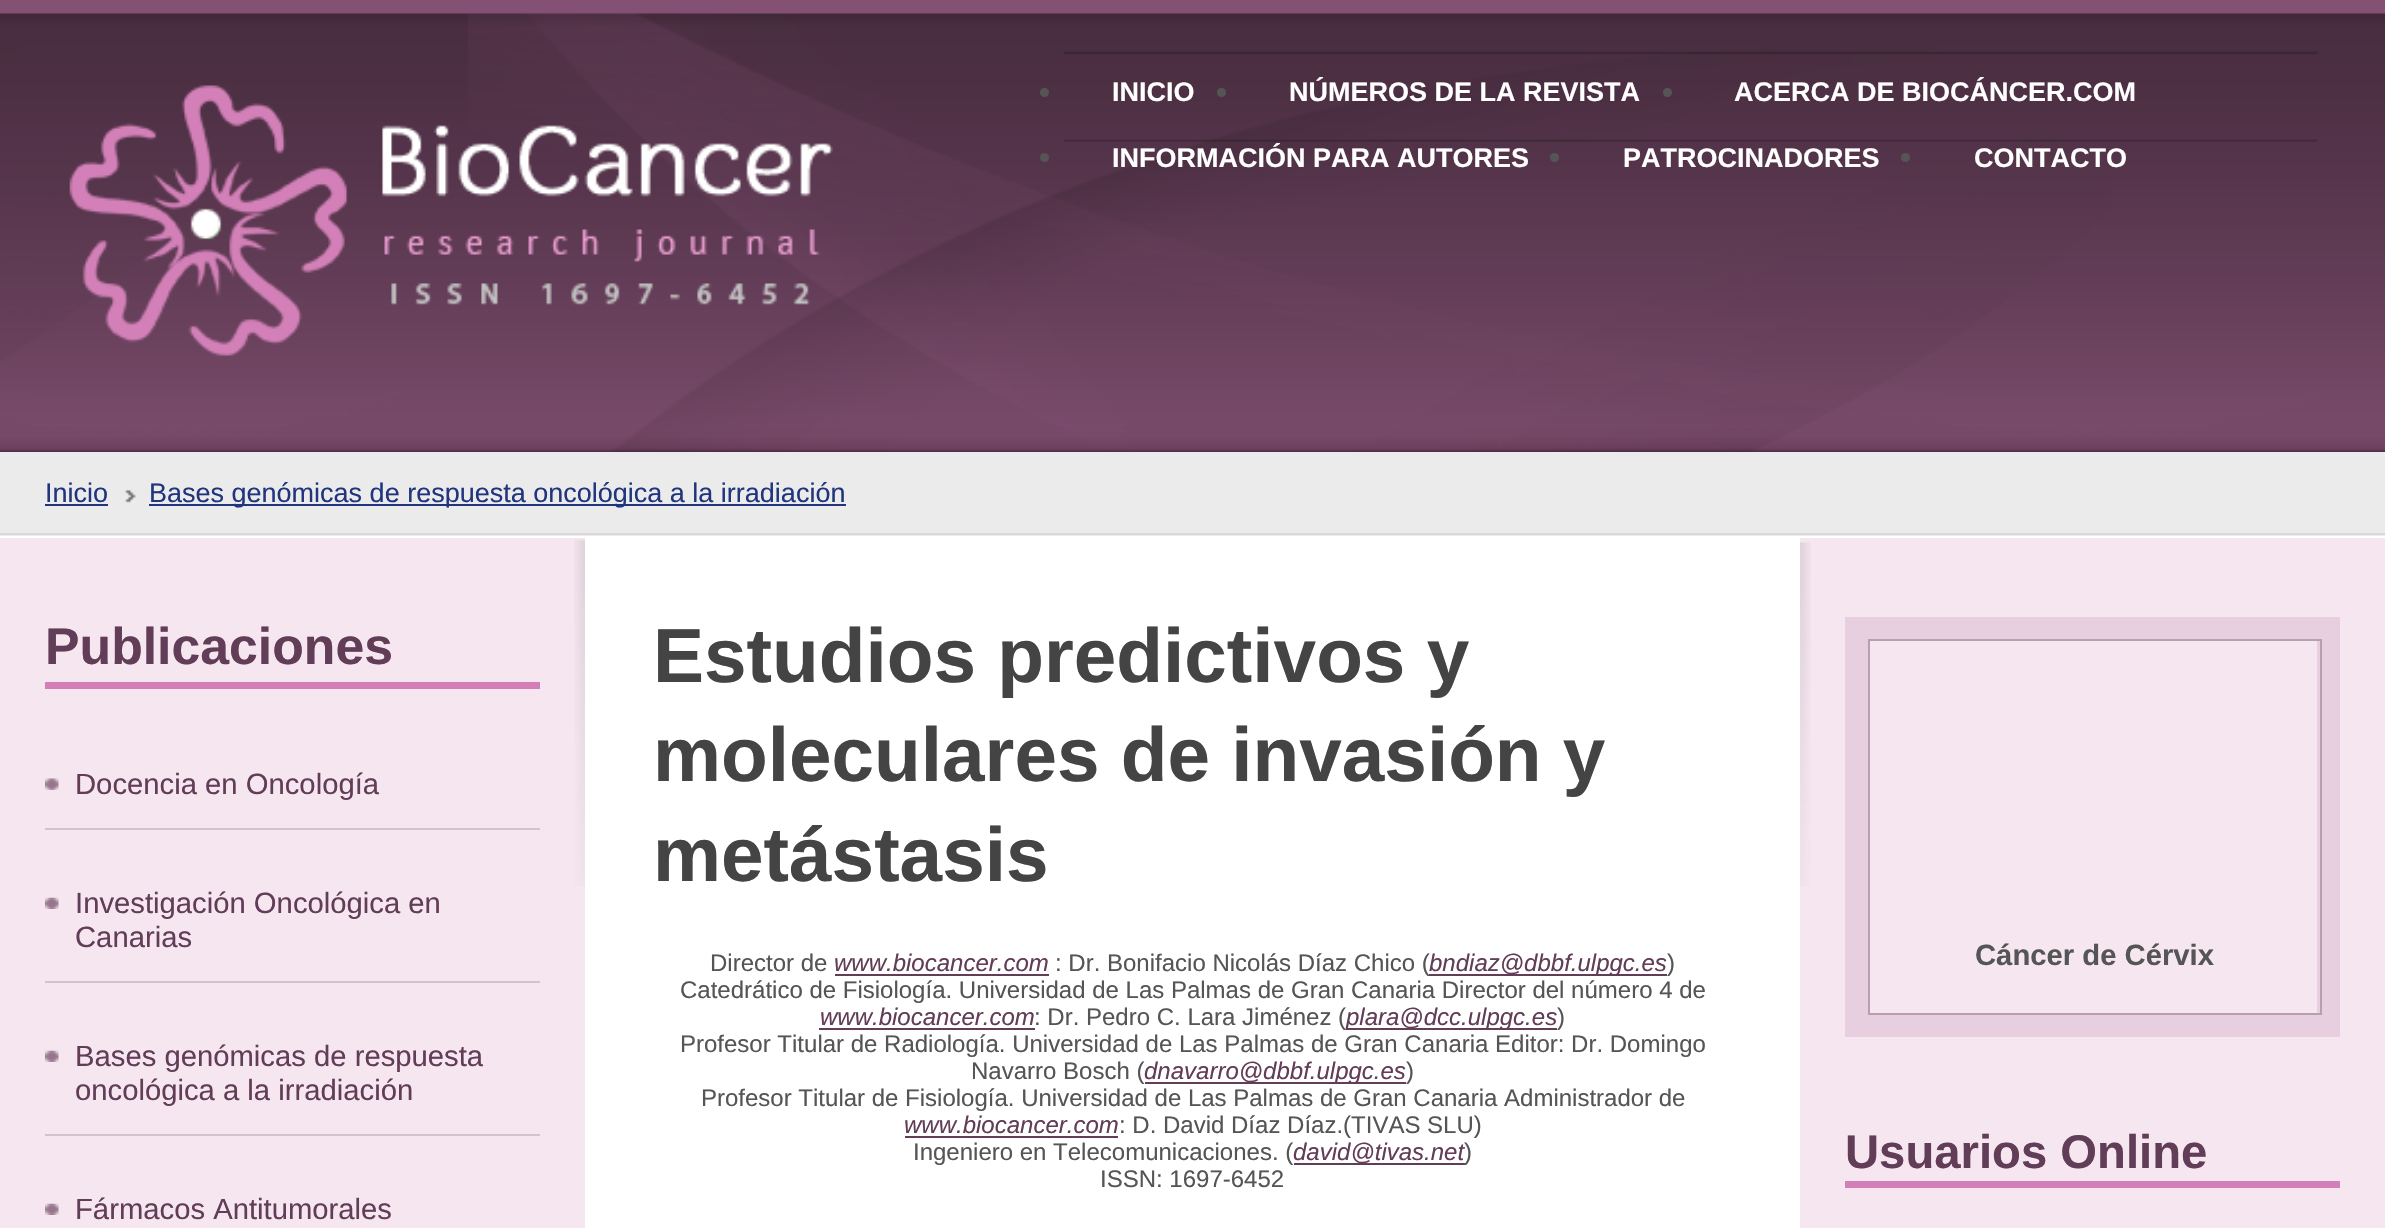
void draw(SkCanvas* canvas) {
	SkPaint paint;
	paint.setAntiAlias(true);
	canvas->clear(0xffffffff);
	canvas->drawImageRect(SkImages::DeferredFromEncodedData(SkData::MakeFromFileName("img1.png")), SkRect::MakeXYWH(0, 0, 2385, 452), SkSamplingOptions());
	canvas->drawImageRect(SkImages::DeferredFromEncodedData(SkData::MakeFromFileName("img2.png")), SkRect::MakeXYWH(69, 85, 764, 271), SkSamplingOptions());
	canvas->drawImageRect(SkImages::DeferredFromEncodedData(SkData::MakeFromFileName("img3.png")), SkRect::MakeXYWH(1064, 51, 1254, 91), SkSamplingOptions());
	paint.setColor(0xff555555);
	canvas->drawCircle(1044.5, 92.5, 4.5, paint);
	SkFont f1(fontMgr->matchFamilyStyle("Liberation Sans", SkFontStyle::Bold()), 27);
	f1.setSubpixel(true);
	paint.setColor(0xffffffff);
	canvas->drawString("INICIO", 1112, 101, f1, paint);
	paint.setColor(0xff555555);
	canvas->drawCircle(1221.5, 92.5, 4.5, paint);
	paint.setColor(0xffffffff);
	canvas->drawString("NÚMEROS DE LA REVISTA", 1289, 101, f1, paint);
	paint.setColor(0xff555555);
	canvas->drawCircle(1667.5, 92.5, 4.5, paint);
	paint.setColor(0xffffffff);
	canvas->drawString("ACERCA DE BIOCÁNCER.COM", 1734, 101, f1, paint);
	paint.setColor(0xff555555);
	canvas->drawCircle(1044.5, 157.5, 4.5, paint);
	paint.setColor(0xffffffff);
	canvas->drawString("INFORMACIÓN PARA AUTORES", 1112, 167, f1, paint);
	paint.setColor(0xff555555);
	canvas->drawCircle(1554.5, 157.5, 4.5, paint);
	paint.setColor(0xffffffff);
	canvas->drawString("PATROCINADORES", 1623, 167, f1, paint);
	paint.setColor(0xff555555);
	canvas->drawCircle(1905.5, 157.5, 4.5, paint);
	paint.setColor(0xffffffff);
	canvas->drawString("CONTACTO", 1974, 167, f1, paint);
	paint.setColor(0xfff5e6f0);
	canvas->drawRect(SkRect::MakeXYWH(0, 538, 585, 690), paint);
	canvas->drawRect(SkRect::MakeXYWH(1800, 538, 585, 690), paint);
	paint.setColor(0xffebebeb);
	canvas->drawRect(SkRect::MakeXYWH(0, 452, 2385, 84), paint);
	paint.setColor(0xffd8d8d8);
	canvas->drawRect(SkRect::MakeXYWH(0, 533, 2385, 2), paint);
	SkFont f2(fontMgr->matchFamilyStyle("Liberation Sans", SkFontStyle::Normal()), 27);
	f2.setSubpixel(true);
	paint.setColor(0xff21357e);
	canvas->drawString("Inicio", 45, 502, f2, paint);
	canvas->drawRect(SkRect::MakeXYWH(45, 504, 63, 2), paint);
	canvas->drawImageRect(SkImages::DeferredFromEncodedData(SkData::MakeFromFileName("img4.png")), SkRect::MakeXYWH(125, 490, 11, 13), SkSamplingOptions());
	canvas->drawRect(SkRect::MakeXYWH(149, 504, 697, 2), paint);
	canvas->drawString("Bases genómicas de respuesta oncológica a la irradiación", 149, 502, f2, paint);
	canvas->drawImageRect(SkImages::DeferredFromEncodedData(SkData::MakeFromFileName("img5.png")), SkRect::MakeXYWH(574, 539, 11, 347), SkSamplingOptions());
	paint.setColor(0xffd280b7);
	canvas->drawRect(SkRect::MakeXYWH(45, 682, 495, 7), paint);
	SkFont f3(fontMgr->matchFamilyStyle("Liberation Sans", SkFontStyle::Bold()), 51.75);
	f3.setSubpixel(true);
	paint.setColor(0xff623d57);
	canvas->drawString("Publicaciones", 45, 664, f3, paint);
	canvas->drawImageRect(SkImages::DeferredFromEncodedData(SkData::MakeFromFileName("img6.png")), SkRect::MakeXYWH(45, 778, 14, 12), SkSamplingOptions());
	paint.setColor(0xffd4c3ce);
	canvas->drawRect(SkRect::MakeXYWH(45, 828, 495, 2), paint);
	SkFont f4(fontMgr->matchFamilyStyle("Liberation Sans", SkFontStyle::Normal()), 29.25);
	f4.setSubpixel(true);
	paint.setColor(0xff623d57);
	canvas->drawString("Docencia en Oncología", 75, 794, f4, paint);
	canvas->drawImageRect(SkImages::DeferredFromEncodedData(SkData::MakeFromFileName("img7.png")), SkRect::MakeXYWH(45, 897, 14, 12), SkSamplingOptions());
	paint.setColor(0xffd4c3ce);
	canvas->drawRect(SkRect::MakeXYWH(45, 981, 495, 2), paint);
	paint.setColor(0xff623d57);
	canvas->drawString("Investigación Oncológica en", 75, 913, f4, paint);
	canvas->drawString("Canarias", 75, 947, f4, paint);
	canvas->drawImageRect(SkImages::DeferredFromEncodedData(SkData::MakeFromFileName("img7.png")), SkRect::MakeXYWH(45, 1050, 14, 12), SkSamplingOptions());
	paint.setColor(0xffd4c3ce);
	canvas->drawRect(SkRect::MakeXYWH(45, 1134, 495, 2), paint);
	paint.setColor(0xff623d57);
	canvas->drawString("Bases genómicas de respuesta", 75, 1066, f4, paint);
	canvas->drawString("oncológica a la irradiación", 75, 1100, f4, paint);
	canvas->drawImageRect(SkImages::DeferredFromEncodedData(SkData::MakeFromFileName("img7.png")), SkRect::MakeXYWH(45, 1203, 14, 12), SkSamplingOptions());
	canvas->drawString("Fármacos Antitumorales", 75, 1219, f4, paint);
	SkFont f5(fontMgr->matchFamilyStyle("Liberation Sans", SkFontStyle::Bold()), 76.5);
	f5.setSubpixel(true);
	paint.setColor(0xff444444);
	canvas->drawString("Estudios predictivos y", 653, 682, f5, paint);
	canvas->drawString("moleculares de invasión y", 653, 781, f5, paint);
	canvas->drawString("metástasis", 653, 881, f5, paint);
	SkFont f6(fontMgr->matchFamilyStyle("Liberation Sans", SkFontStyle::Normal()), 24);
	f6.setSubpixel(true);
	paint.setColor(0xff555555);
	canvas->drawString("Director de", 710, 971, f6, paint);
	SkFont f7(fontMgr->matchFamilyStyle("Liberation Sans", SkFontStyle::Italic()), 24);
	f7.setSubpixel(true);
	paint.setColor(0xff623d57);
	canvas->drawString("www.biocancer.com", 834, 971, f7, paint);
	canvas->drawRect(SkRect::MakeXYWH(835, 974, 214, 2), paint);
	paint.setColor(0xff555555);
	canvas->drawString(": Dr. Bonifacio Nicolás Díaz Chico (", 1055, 971, f6, paint);
	paint.setColor(0xff623d57);
	canvas->drawRect(SkRect::MakeXYWH(1429, 974, 238, 2), paint);
	canvas->drawString("bndiaz@dbbf.ulpgc.es", 1429, 971, f7, paint);
	paint.setColor(0xff555555);
	canvas->drawString(")", 1667, 971, f6, paint);
	canvas->drawString("Catedrático de Fisiología. Universidad de Las Palmas de Gran Canaria Director del número 4 de", 680, 998, f6, paint);
	paint.setColor(0xff623d57);
	canvas->drawString("www.biocancer.com", 820, 1025, f7, paint);
	canvas->drawRect(SkRect::MakeXYWH(819, 1028, 216, 2), paint);
	paint.setColor(0xff555555);
	canvas->drawString(": Dr. Pedro C. Lara Jiménez (", 1034, 1025, f6, paint);
	paint.setColor(0xff623d57);
	canvas->drawRect(SkRect::MakeXYWH(1346, 1028, 211, 2), paint);
	canvas->drawString("plara@dcc.ulpgc.es", 1346, 1025, f7, paint);
	paint.setColor(0xff555555);
	canvas->drawString(")", 1557, 1025, f6, paint);
	canvas->drawString("Profesor Titular de Radiología. Universidad de Las Palmas de Gran Canaria Editor: Dr. Domingo", 680, 1052, f6, paint);
	canvas->drawString("Navarro Bosch (", 971, 1079, f6, paint);
	paint.setColor(0xff623d57);
	canvas->drawRect(SkRect::MakeXYWH(1145, 1082, 261, 2), paint);
	canvas->drawString("dnavarro@dbbf.ulpgc.es", 1144, 1079, f7, paint);
	paint.setColor(0xff555555);
	canvas->drawString(")", 1406, 1079, f6, paint);
	canvas->drawString("Profesor Titular de Fisiología. Universidad de Las Palmas de Gran Canaria Administrador de", 701, 1106, f6, paint);
	paint.setColor(0xff623d57);
	canvas->drawString("www.biocancer.com", 904, 1133, f7, paint);
	canvas->drawRect(SkRect::MakeXYWH(905, 1136, 213, 2), paint);
	paint.setColor(0xff555555);
	canvas->drawString(": D. David Díaz Díaz.(TIVAS SLU)", 1119, 1133, f6, paint);
	canvas->drawString("Ingeniero en Telecomunicaciones. (", 913, 1160, f6, paint);
	paint.setColor(0xff623d57);
	canvas->drawRect(SkRect::MakeXYWH(1294, 1163, 171, 2), paint);
	canvas->drawString("david@tivas.net", 1293, 1160, f7, paint);
	paint.setColor(0xff555555);
	canvas->drawString(")", 1464, 1160, f6, paint);
	canvas->drawString("ISSN: 1697-6452", 1100, 1187, f6, paint);
	canvas->drawImageRect(SkImages::DeferredFromEncodedData(SkData::MakeFromFileName("img8.png")), SkRect::MakeXYWH(1800, 542, 11, 344), SkSamplingOptions());
	paint.setStroke(true);
	paint.setStrokeWidth(23);
	paint.setColor(0xffe7cfdf);
	canvas->drawRect(SkRect::MakeXYWH(1856.5, 628.5, 472, 397), paint);
	paint.setStrokeWidth(2);
	paint.setColor(0xffb79faf);
	canvas->drawRect(SkRect::MakeXYWH(1869, 640, 452, 374), paint);
	SkFont f8(fontMgr->matchFamilyStyle("Liberation Sans", SkFontStyle::Bold()), 29.25);
	f8.setSubpixel(true);
	paint.setStroke(false);
	paint.setColor(0xff555555);
	canvas->drawString("Cáncer de Cérvix", 1975, 965, f8, paint);
	paint.setColor(0xffd280b7);
	canvas->drawRect(SkRect::MakeXYWH(1845, 1181, 495, 7), paint);
	SkFont f9(fontMgr->matchFamilyStyle("Liberation Sans", SkFontStyle::Bold()), 47.25);
	f9.setSubpixel(true);
	paint.setColor(0xff623d57);
	canvas->drawString("Usuarios Online", 1845, 1168, f9, paint);
}
